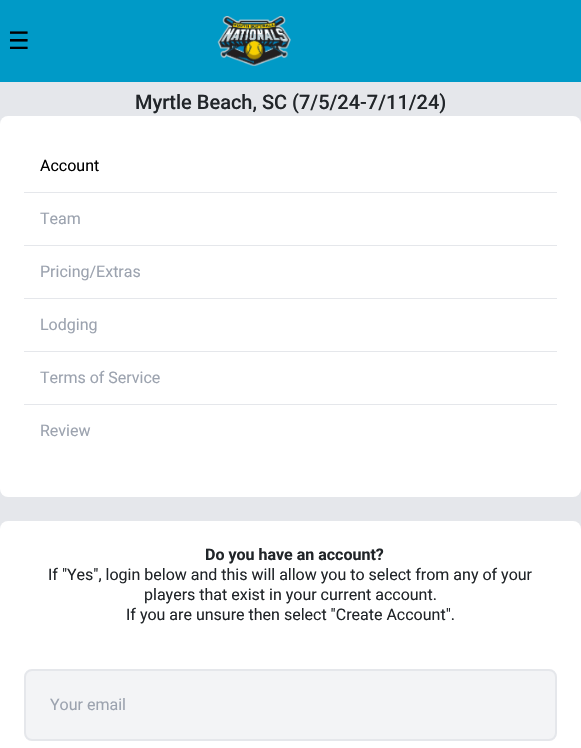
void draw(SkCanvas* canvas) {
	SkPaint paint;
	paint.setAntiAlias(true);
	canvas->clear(0xffe5e7eb);
	paint.setColor(0xff009ac7);
	canvas->drawRect(SkRect::MakeXYWH(0, 0, 581, 82), paint);
	SkFont f1(fontMgr->matchFamilyStyle("DejaVu Sans", SkFontStyle::Normal()), 24);
	f1.setSubpixel(true);
	paint.setColor(0xff000000);
	canvas->drawString("☰", 8, 49, f1, paint);
	canvas->drawImageRect(SkImages::DeferredFromEncodedData(SkData::MakeFromFileName("img1.png")), SkRect::MakeXYWH(217, 16, 74, 50), SkSamplingOptions());
	SkFont f2(fontMgr->matchFamilyStyle("Roboto", SkFontStyle(500, SkFontStyle::kNormal_Width, SkFontStyle::kUpright_Slant)), 20);
	f2.setSubpixel(true);
	paint.setColor(0xff212529);
	canvas->drawString("Myrtle Beach, SC (7/5/24-7/11/24)", 135, 109, f2, paint);
	paint.setColor(0xffffffff);
	canvas->drawRoundRect(SkRect::MakeXYWH(0, 116, 581, 381), 8, 8, paint);
	SkFont f3(fontMgr->matchFamilyStyle("Roboto", SkFontStyle::Normal()), 16);
	f3.setSubpixel(true);
	paint.setColor(0xff000000);
	canvas->drawString("Account", 40, 171, f3, paint);
	paint.setColor(0xffe5e7eb);
	canvas->drawRect(SkRect::MakeXYWH(24, 192, 533, 1), paint);
	paint.setColor(0xff9ca3af);
	canvas->drawString("Team", 40, 224, f3, paint);
	paint.setColor(0xffe5e7eb);
	canvas->drawRect(SkRect::MakeXYWH(24, 245, 533, 1), paint);
	paint.setColor(0xff9ca3af);
	canvas->drawString("Pricing/Extras", 40, 277, f3, paint);
	paint.setColor(0xffe5e7eb);
	canvas->drawRect(SkRect::MakeXYWH(24, 298, 533, 1), paint);
	paint.setColor(0xff9ca3af);
	canvas->drawString("Lodging", 40, 330, f3, paint);
	paint.setColor(0xffe5e7eb);
	canvas->drawRect(SkRect::MakeXYWH(24, 351, 533, 1), paint);
	paint.setColor(0xff9ca3af);
	canvas->drawString("Terms of Service", 40, 383, f3, paint);
	paint.setColor(0xffe5e7eb);
	canvas->drawRect(SkRect::MakeXYWH(24, 404, 533, 1), paint);
	paint.setColor(0xff9ca3af);
	canvas->drawString("Review", 40, 436, f3, paint);
	paint.setColor(0xffffffff);
	canvas->drawRoundRect(SkRect::MakeXYWH(0, 521, 581, 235), 8, 8, paint);
	SkFont f4(fontMgr->matchFamilyStyle("Roboto", SkFontStyle::Bold()), 16);
	f4.setSubpixel(true);
	paint.setColor(0xff212529);
	canvas->drawString("Do you have an account?", 205, 560, f4, paint);
	canvas->drawString("If \"Yes\", login below and this will allow you to select from any of your", 48, 580, f3, paint);
	canvas->drawString("players that exist in your current account.", 144, 600, f3, paint);
	canvas->drawString("If you are unsure then select \"Create Account\".", 126, 620, f3, paint);
	paint.setColor(0xfff3f4f6);
	canvas->drawRoundRect(SkRect::MakeXYWH(25, 670, 531, 70), 7, 7, paint);
	paint.setStroke(true);
	paint.setStrokeWidth(2);
	paint.setColor(0xffe5e7eb);
	canvas->drawRoundRect(SkRect::MakeXYWH(25, 670, 531, 70), 7, 7, paint);
	paint.setStroke(false);
	paint.setColor(0xff9ca3af);
	canvas->drawString("Your email", 50, 710, f3, paint);
}
